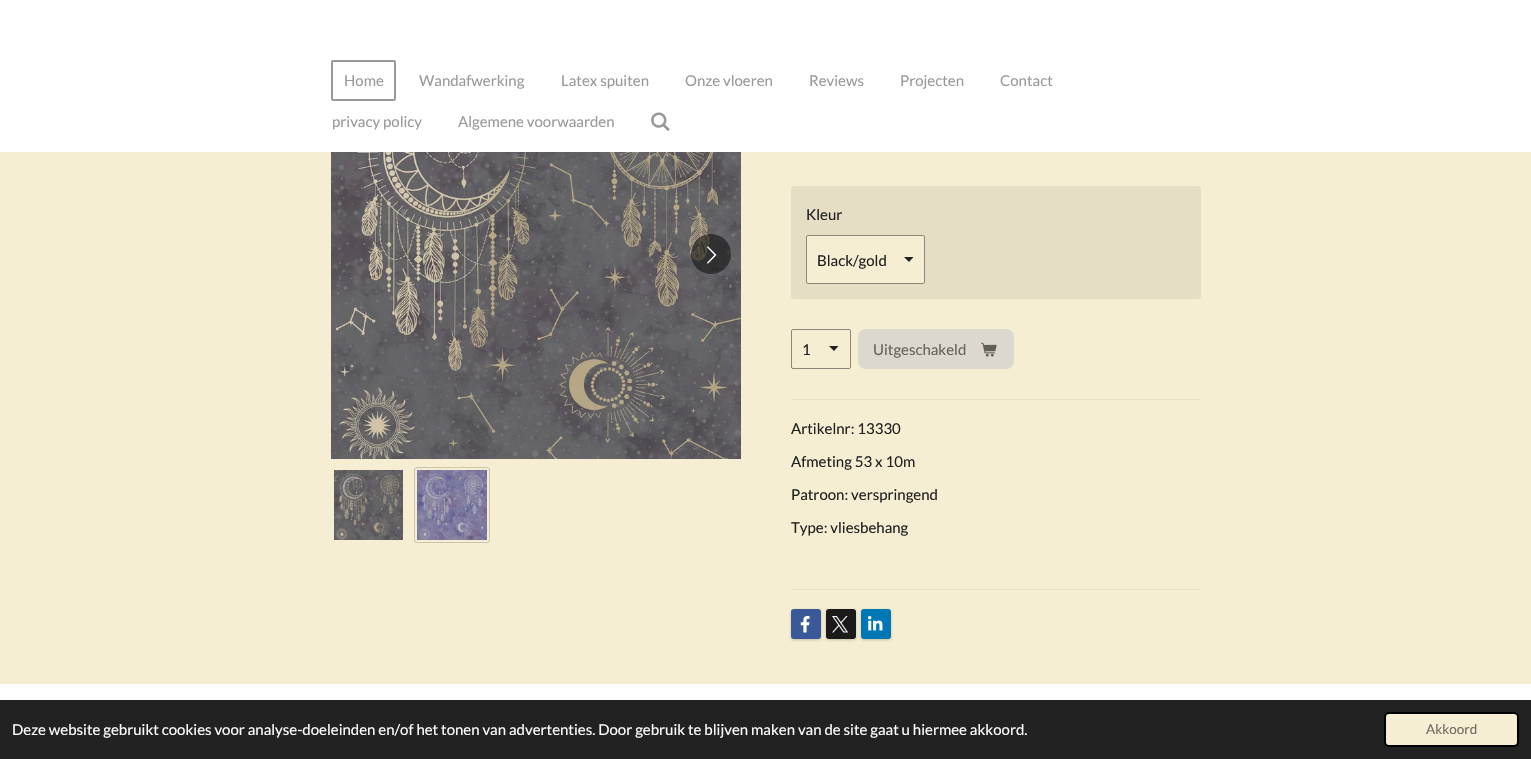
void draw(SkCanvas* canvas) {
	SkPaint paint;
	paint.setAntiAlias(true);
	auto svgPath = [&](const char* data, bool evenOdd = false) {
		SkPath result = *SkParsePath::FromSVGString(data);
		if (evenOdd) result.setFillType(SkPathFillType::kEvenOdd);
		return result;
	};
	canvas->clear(0xffffffff);
	paint.setStroke(true);
	paint.setStrokeWidth(2);
	paint.setColor(0xff999999);
	canvas->drawRoundRect(SkRect::MakeXYWH(332, 61, 63, 39), 1, 1, paint);
	SkFont f1(fontMgr->matchFamilyStyle("Lato", SkFontStyle::Normal()), 15);
	f1.setSubpixel(true);
	paint.setStroke(false);
	canvas->drawString("Home", 344, 86, f1, paint);
	canvas->drawString("Wandafwerking", 419, 86, f1, paint);
	canvas->drawString("Latex spuiten", 561, 86, f1, paint);
	canvas->drawString("Onze vloeren", 685, 86, f1, paint);
	canvas->drawString("Reviews", 809, 86, f1, paint);
	canvas->drawString("Projecten", 900, 86, f1, paint);
	canvas->drawString("Contact", 1000, 86, f1, paint);
	canvas->drawString("privacy policy", 332, 127, f1, paint);
	canvas->drawString("Algemene voorwaarden", 458, 127, f1, paint);
	canvas->drawImageRect(SkImages::DeferredFromEncodedData(SkData::MakeFromFileName("img1.png")), SkRect::MakeXYWH(651, 112, 19, 19), SkSamplingOptions());
	paint.setColor(0xfff6eed2);
	canvas->drawRect(SkRect::MakeXYWH(0, 152, 1531, 532), paint);
	canvas->drawImageRect(SkImages::DeferredFromEncodedData(SkData::MakeFromFileName("img2.png")), SkRect::MakeXYWH(331, 152, 410, 307), SkSamplingOptions());
	paint.setColor(0x80000000);
	canvas->drawCircle(711, 254, 20, paint);
	canvas->drawImageRect(SkImages::DeferredFromEncodedData(SkData::MakeFromFileName("img3.png")), SkRect::MakeXYWH(707, 246, 10, 18), SkSamplingOptions());
	canvas->drawImageRect(SkImages::DeferredFromEncodedData(SkData::MakeFromFileName("img4.png")), SkRect::MakeXYWH(334, 470, 69, 70), SkSamplingOptions());
	paint.setStroke(true);
	paint.setStrokeWidth(1);
	paint.setColor(0xffcbc5ae);
	canvas->drawRoundRect(SkRect::MakeXYWH(414.5, 467.5, 75, 75), 2.5, 2.5, paint);
	canvas->drawImageRect(SkImages::DeferredFromEncodedData(SkData::MakeFromFileName("img5.png")), SkRect::MakeXYWH(417, 470, 70, 70), SkSamplingOptions());
	paint.setStroke(false);
	paint.setColor(0xffe5dec4);
	canvas->drawRoundRect(SkRect::MakeXYWH(791, 186, 410, 113), 3, 3, paint);
	paint.setColor(0xff202020);
	canvas->drawString("Kleur", 806, 220, f1, paint);
	paint.setColor(0xfff6eed2);
	canvas->drawRoundRect(SkRect::MakeXYWH(806, 235, 119, 49), 2, 2, paint);
	paint.setColor(0xff202020);
	canvas->drawPath(svgPath("M909 262L904 257H913.5Z"), paint);
	paint.setStroke(true);
	paint.setColor(0xff8b8779);
	canvas->drawRoundRect(SkRect::MakeXYWH(806.5, 235.5, 118, 48), 1.5, 1.5, paint);
	paint.setStroke(false);
	paint.setColor(0xff202020);
	canvas->drawString("Black/gold", 817, 266, f1, paint);
	canvas->drawPath(svgPath("M834 351L829 346H838.5Z"), paint);
	paint.setStroke(true);
	paint.setColor(0xff8b8779);
	canvas->drawRoundRect(SkRect::MakeXYWH(791.5, 329.5, 59, 39), 1.5, 1.5, paint);
	paint.setStroke(false);
	paint.setColor(0xff202020);
	canvas->drawString("1", 802, 355, f1, paint);
	paint.setColor(0xffdcd8cd);
	canvas->drawRoundRect(SkRect::MakeXYWH(858, 329, 156, 40), 8, 8, paint);
	paint.setColor(0xff656359);
	canvas->drawString("Uitgeschakeld", 873, 355, f1, paint);
	canvas->drawImageRect(SkImages::DeferredFromEncodedData(SkData::MakeFromFileName("img6.png")), SkRect::MakeXYWH(981, 342, 16, 15), SkSamplingOptions());
	paint.setColor(0xffe7e0c6);
	canvas->drawRect(SkRect::MakeXYWH(791, 399, 410, 1), paint);
	paint.setColor(0xff202020);
	canvas->drawString("Artikelnr: 13330", 791, 434, f1, paint);
	canvas->drawString("Afmeting 53 x 10m", 791, 467, f1, paint);
	canvas->drawString("Patroon: verspringend", 791, 500, f1, paint);
	canvas->drawString("Type: vliesbehang", 791, 533, f1, paint);
	paint.setColor(0xffe7e0c6);
	canvas->drawRect(SkRect::MakeXYWH(791, 589, 410, 1), paint);
	paint.setColor(0x33000000);
	paint.setMaskFilter(SkMaskFilter::MakeBlur(kNormal_SkBlurStyle, 1.5));
	canvas->drawRoundRect(SkRect::MakeXYWH(791, 610, 30, 30), 3, 3, paint);
	paint.setMaskFilter(nullptr);
	paint.setColor(0xff3b5998);
	canvas->drawRoundRect(SkRect::MakeXYWH(791, 609, 30, 30), 3, 3, paint);
	canvas->drawImageRect(SkImages::DeferredFromEncodedData(SkData::MakeFromFileName("img7.png")), SkRect::MakeXYWH(800, 616, 10, 17), SkSamplingOptions());
	paint.setColor(0x33000000);
	paint.setMaskFilter(SkMaskFilter::MakeBlur(kNormal_SkBlurStyle, 1.5));
	canvas->drawRoundRect(SkRect::MakeXYWH(826, 610, 30, 30), 3, 3, paint);
	paint.setMaskFilter(nullptr);
	paint.setColor(0xff1a1a1a);
	canvas->drawRoundRect(SkRect::MakeXYWH(826, 609, 30, 30), 3, 3, paint);
	canvas->drawImageRect(SkImages::DeferredFromEncodedData(SkData::MakeFromFileName("img8.png")), SkRect::MakeXYWH(832, 616, 16, 17), SkSamplingOptions());
	paint.setColor(0x33000000);
	paint.setMaskFilter(SkMaskFilter::MakeBlur(kNormal_SkBlurStyle, 1.5));
	canvas->drawRoundRect(SkRect::MakeXYWH(861, 610, 30, 30), 3, 3, paint);
	paint.setMaskFilter(nullptr);
	paint.setColor(0xff0077b5);
	canvas->drawRoundRect(SkRect::MakeXYWH(861, 609, 30, 30), 3, 3, paint);
	canvas->drawImageRect(SkImages::DeferredFromEncodedData(SkData::MakeFromFileName("img9.png")), SkRect::MakeXYWH(868, 616, 15, 15), SkSamplingOptions());
	paint.setColor(0xff222222);
	canvas->drawRect(SkRect::MakeXYWH(0, 700, 1531, 59), paint);
	paint.setColor(0xffffffff);
	canvas->drawString("Deze website gebruikt cookies voor analyse-doeleinden en/of het tonen van advertenties. Door gebruik te blijven maken van de site gaat u hiermee akkoord.", 12, 735, f1, paint);
	paint.setColor(0xfff6eed2);
	canvas->drawRoundRect(SkRect::MakeXYWH(1385, 713, 133, 33), 4, 4, paint);
	paint.setStroke(true);
	paint.setStrokeWidth(2);
	paint.setColor(0xff000000);
	canvas->drawRoundRect(SkRect::MakeXYWH(1385, 713, 133, 33), 4, 4, paint);
	SkFont f2(fontMgr->matchFamilyStyle("Lato", SkFontStyle::Normal()), 13.5);
	f2.setSubpixel(true);
	paint.setStroke(false);
	paint.setColor(0xff6f6b5e);
	canvas->drawString("Akkoord", 1426, 734, f2, paint);
}
